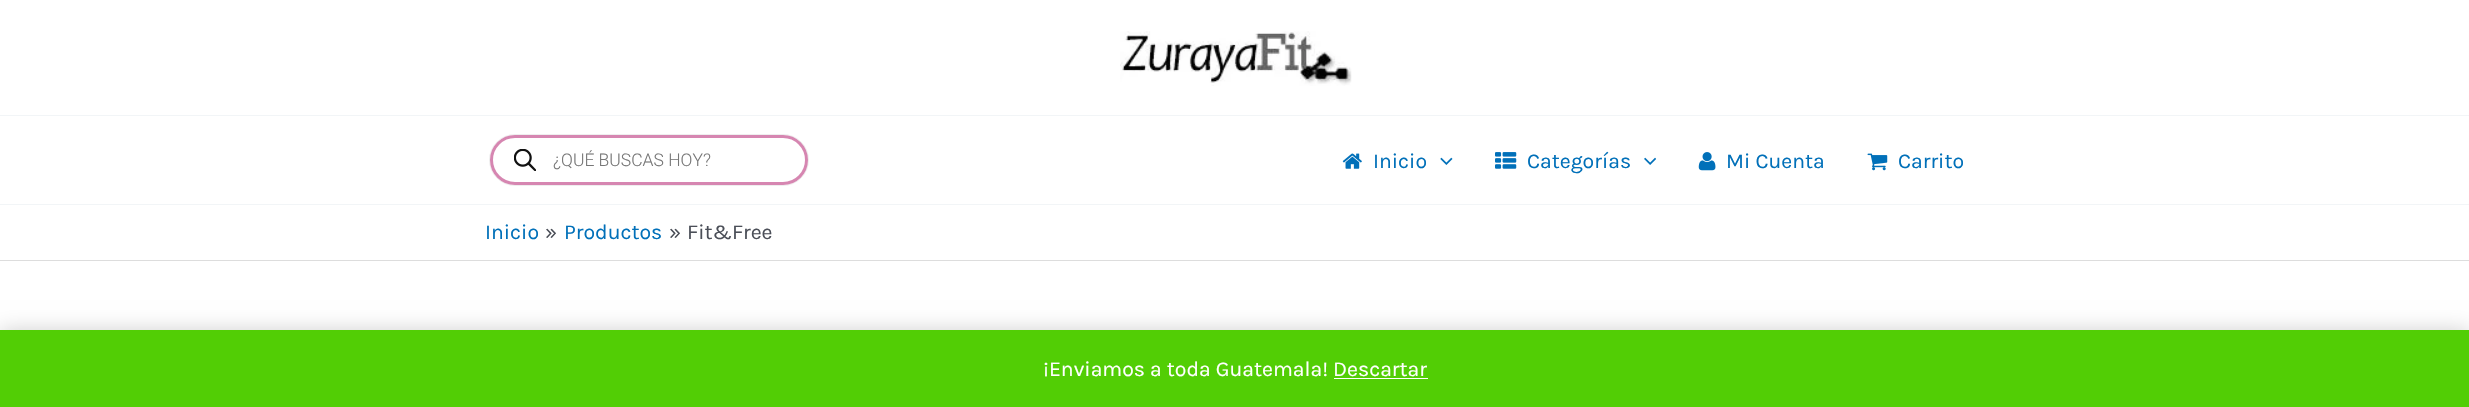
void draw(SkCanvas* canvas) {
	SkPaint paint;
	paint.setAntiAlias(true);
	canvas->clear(0xffffffff);
	paint.setColor(0xfff2f5f7);
	canvas->drawRect(SkRect::MakeXYWH(0, 115, 2469, 1), paint);
	canvas->drawImageRect(SkImages::DeferredFromEncodedData(SkData::MakeFromFileName("img1.png")), SkRect::MakeXYWH(1120, 31, 232, 55), SkSamplingOptions());
	canvas->drawRect(SkRect::MakeXYWH(0, 204, 2469, 1), paint);
	paint.setStroke(true);
	paint.setStrokeWidth(1);
	paint.setColor(0xffeeeeee);
	canvas->drawRoundRect(SkRect::MakeXYWH(489.5, 134.5, 319, 51), 25.5, 25.5, paint);
	paint.setStroke(false);
	paint.setColor(0xffffffff);
	canvas->drawRoundRect(SkRect::MakeXYWH(491.5, 136.5, 315, 47), 23.5, 23.5, paint);
	paint.setStroke(true);
	paint.setStrokeWidth(3);
	paint.setColor(0xffd686b1);
	canvas->drawRoundRect(SkRect::MakeXYWH(491.5, 136.5, 315, 47), 23.5, 23.5, paint);
	canvas->drawImageRect(SkImages::DeferredFromEncodedData(SkData::MakeFromFileName("img2.png")), SkRect::MakeXYWH(514, 149, 22, 22), SkSamplingOptions());
	SkFont f1(fontMgr->matchFamilyStyle("Roboto", SkFontStyle(300, SkFontStyle::kNormal_Width, SkFontStyle::kUpright_Slant)), 17.5);
	f1.setSubpixel(true);
	paint.setStroke(false);
	paint.setColor(0xff777777);
	canvas->drawString("¿QUÉ BUSCAS HOY?", 553, 166, f1, paint);
	canvas->drawImageRect(SkImages::DeferredFromEncodedData(SkData::MakeFromFileName("img3.png")), SkRect::MakeXYWH(1342, 153, 20, 16), SkSamplingOptions());
	SkFont f2(fontMgr->matchFamilyStyle("Karla", SkFontStyle::Normal()), 21.25);
	f2.setSubpixel(true);
	paint.setColor(0xff0170b9);
	canvas->drawString("Inicio", 1373, 168, f2, paint);
	canvas->drawImageRect(SkImages::DeferredFromEncodedData(SkData::MakeFromFileName("img4.png")), SkRect::MakeXYWH(1440, 157, 13, 8), SkSamplingOptions());
	canvas->drawImageRect(SkImages::DeferredFromEncodedData(SkData::MakeFromFileName("img5.png")), SkRect::MakeXYWH(1495, 152, 22, 17), SkSamplingOptions());
	canvas->drawString("Categorías", 1527, 168, f2, paint);
	canvas->drawImageRect(SkImages::DeferredFromEncodedData(SkData::MakeFromFileName("img6.png")), SkRect::MakeXYWH(1644, 157, 12, 8), SkSamplingOptions());
	canvas->drawImageRect(SkImages::DeferredFromEncodedData(SkData::MakeFromFileName("img7.png")), SkRect::MakeXYWH(1698, 152, 18, 19), SkSamplingOptions());
	canvas->drawString("Mi Cuenta", 1726, 168, f2, paint);
	canvas->drawImageRect(SkImages::DeferredFromEncodedData(SkData::MakeFromFileName("img8.png")), SkRect::MakeXYWH(1867, 153, 21, 18), SkSamplingOptions());
	canvas->drawString("Carrito", 1898, 168, f2, paint);
	paint.setColor(0xffdddddd);
	canvas->drawRect(SkRect::MakeXYWH(0, 260, 2469, 1), paint);
	paint.setColor(0xff0170b9);
	canvas->drawString("Inicio", 485, 239, f2, paint);
	paint.setColor(0xff4b4f58);
	canvas->drawString("»", 545, 239, f2, paint);
	paint.setColor(0xff0170b9);
	canvas->drawString("Productos", 564, 239, f2, paint);
	paint.setColor(0xff4b4f58);
	canvas->drawString("»", 669, 239, f2, paint);
	canvas->drawString("Fit&Free", 687, 239, f2, paint);
	paint.setColor(0x33000000);
	paint.setMaskFilter(SkMaskFilter::MakeBlur(kNormal_SkBlurStyle, 10.5));
	canvas->drawRect(SkRect::MakeXYWH(0, 331, 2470, 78), paint);
	paint.setMaskFilter(nullptr);
	paint.setColor(0xff52ce05);
	canvas->drawRect(SkRect::MakeXYWH(0, 330, 2469, 77), paint);
	paint.setColor(0xffffffff);
	canvas->drawString("¡Enviamos a toda Guatemala! Descartar", 1043, 376, f2, paint);
	canvas->drawRect(SkRect::MakeXYWH(1334, 378, 94, 1), paint);
}
